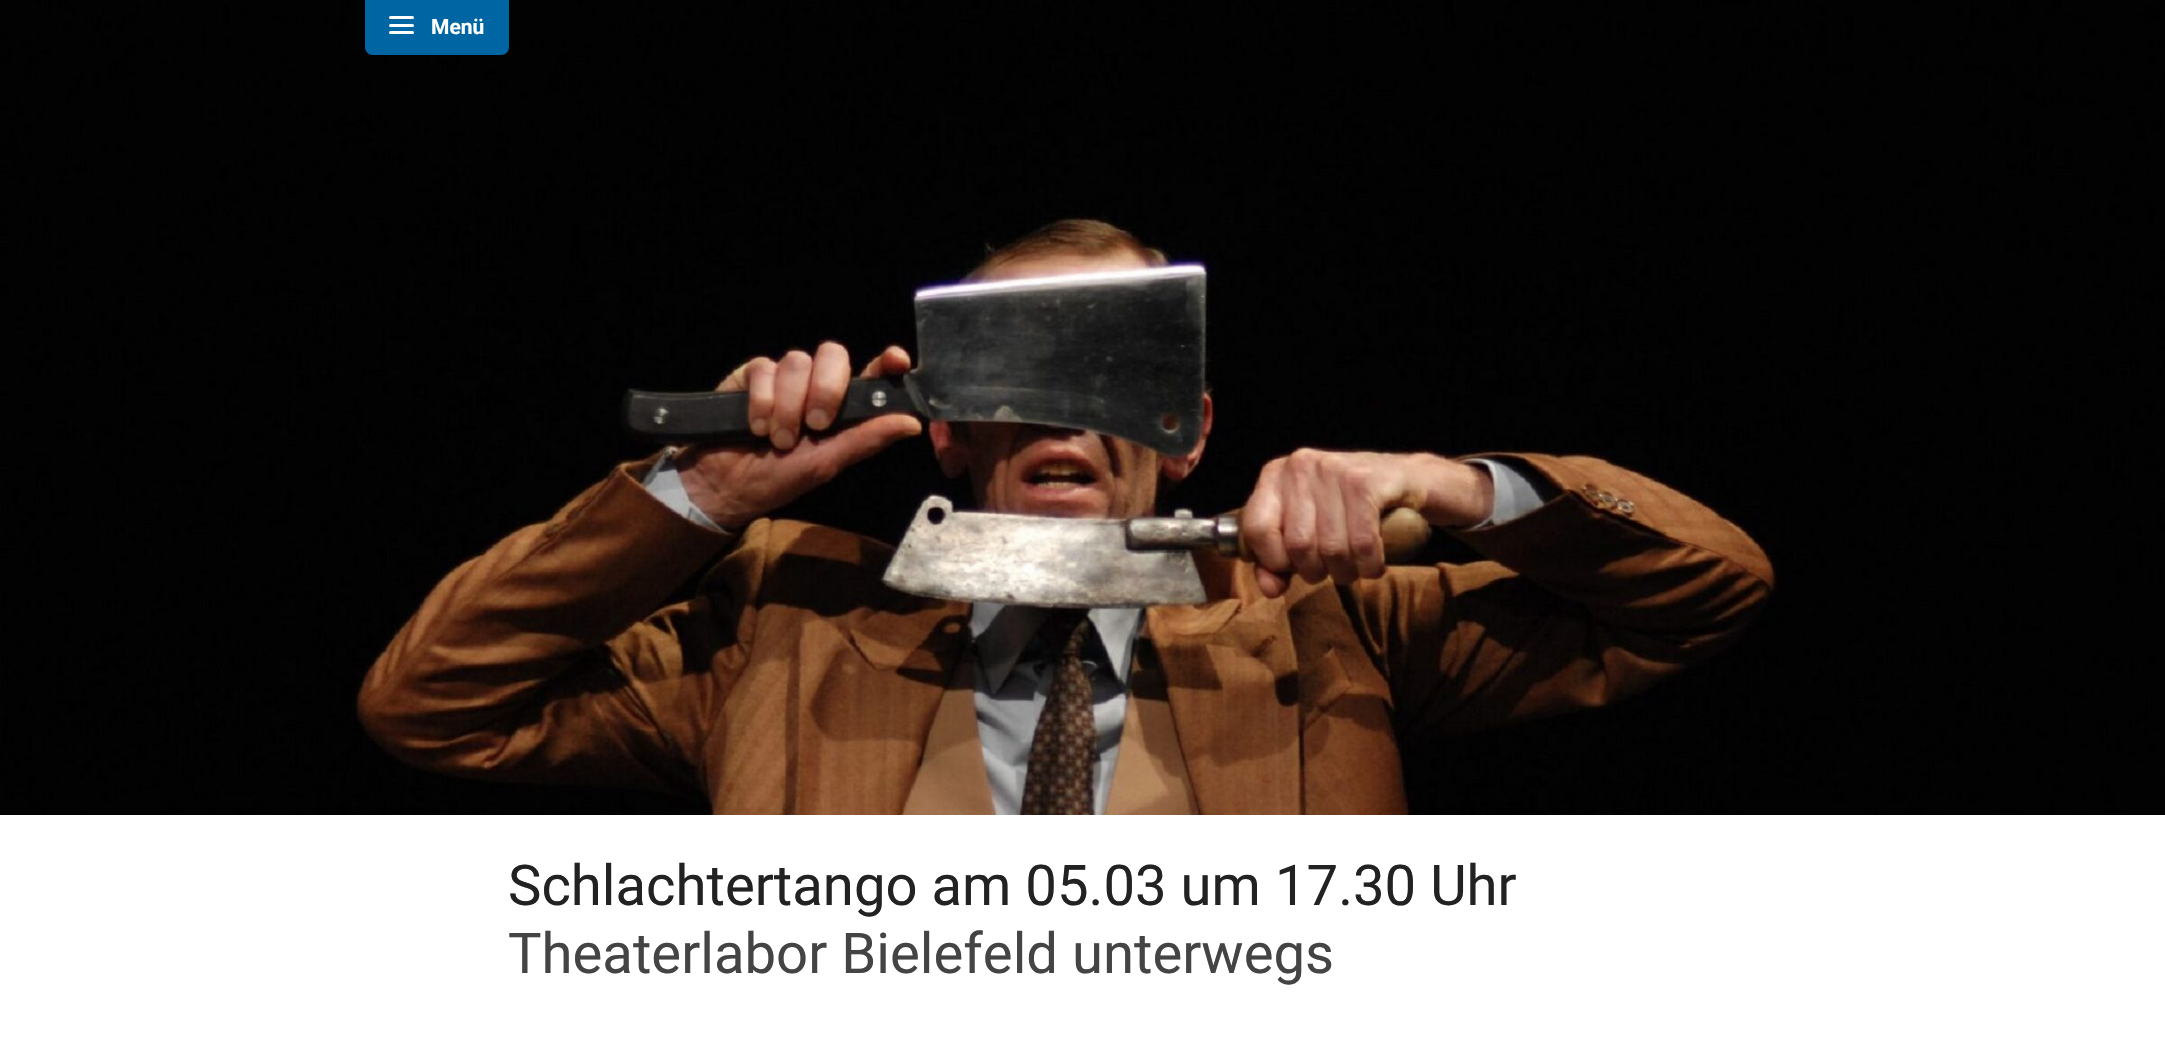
void draw(SkCanvas* canvas) {
	SkPaint paint;
	paint.setAntiAlias(true);
	auto svgPath = [&](const char* data, bool evenOdd = false) {
		SkPath result = *SkParsePath::FromSVGString(data);
		if (evenOdd) result.setFillType(SkPathFillType::kEvenOdd);
		return result;
	};
	canvas->clear(0xffffffff);
	canvas->drawImageRect(SkImages::DeferredFromEncodedData(SkData::MakeFromFileName("img1.png")), SkRect::MakeXYWH(0, 0, 2165, 815), SkSamplingOptions());
	paint.setColor(0xff0065a3);
	canvas->drawPath(svgPath("M365 0H509V47C509 51.5 505.5 55 501 55H373C368.5 55 365 51.5 365 47Z"), paint);
	paint.setColor(0xffffffff);
	canvas->drawRoundRect(SkRect::MakeXYWH(389, 24, 25, 3), 1.5, 1.5, paint);
	canvas->drawRoundRect(SkRect::MakeXYWH(389, 16, 25, 3), 1.5, 1.5, paint);
	canvas->drawRoundRect(SkRect::MakeXYWH(389, 31, 25, 3), 1.5, 1.5, paint);
	SkFont f1(fontMgr->matchFamilyStyle("Roboto", SkFontStyle::Bold()), 21);
	f1.setSubpixel(true);
	canvas->drawString("Menü", 431, 34, f1, paint);
	SkFont f2(fontMgr->matchFamilyStyle("Roboto", SkFontStyle::Normal()), 56.25);
	f2.setSubpixel(true);
	paint.setColor(0xff222222);
	canvas->drawString("Schlachtertango am 05.03 um 17.30 Uhr", 508, 905, f2, paint);
	paint.setColor(0xff444444);
	canvas->drawString("Theaterlabor Bielefeld unterwegs", 508, 973, f2, paint);
}
